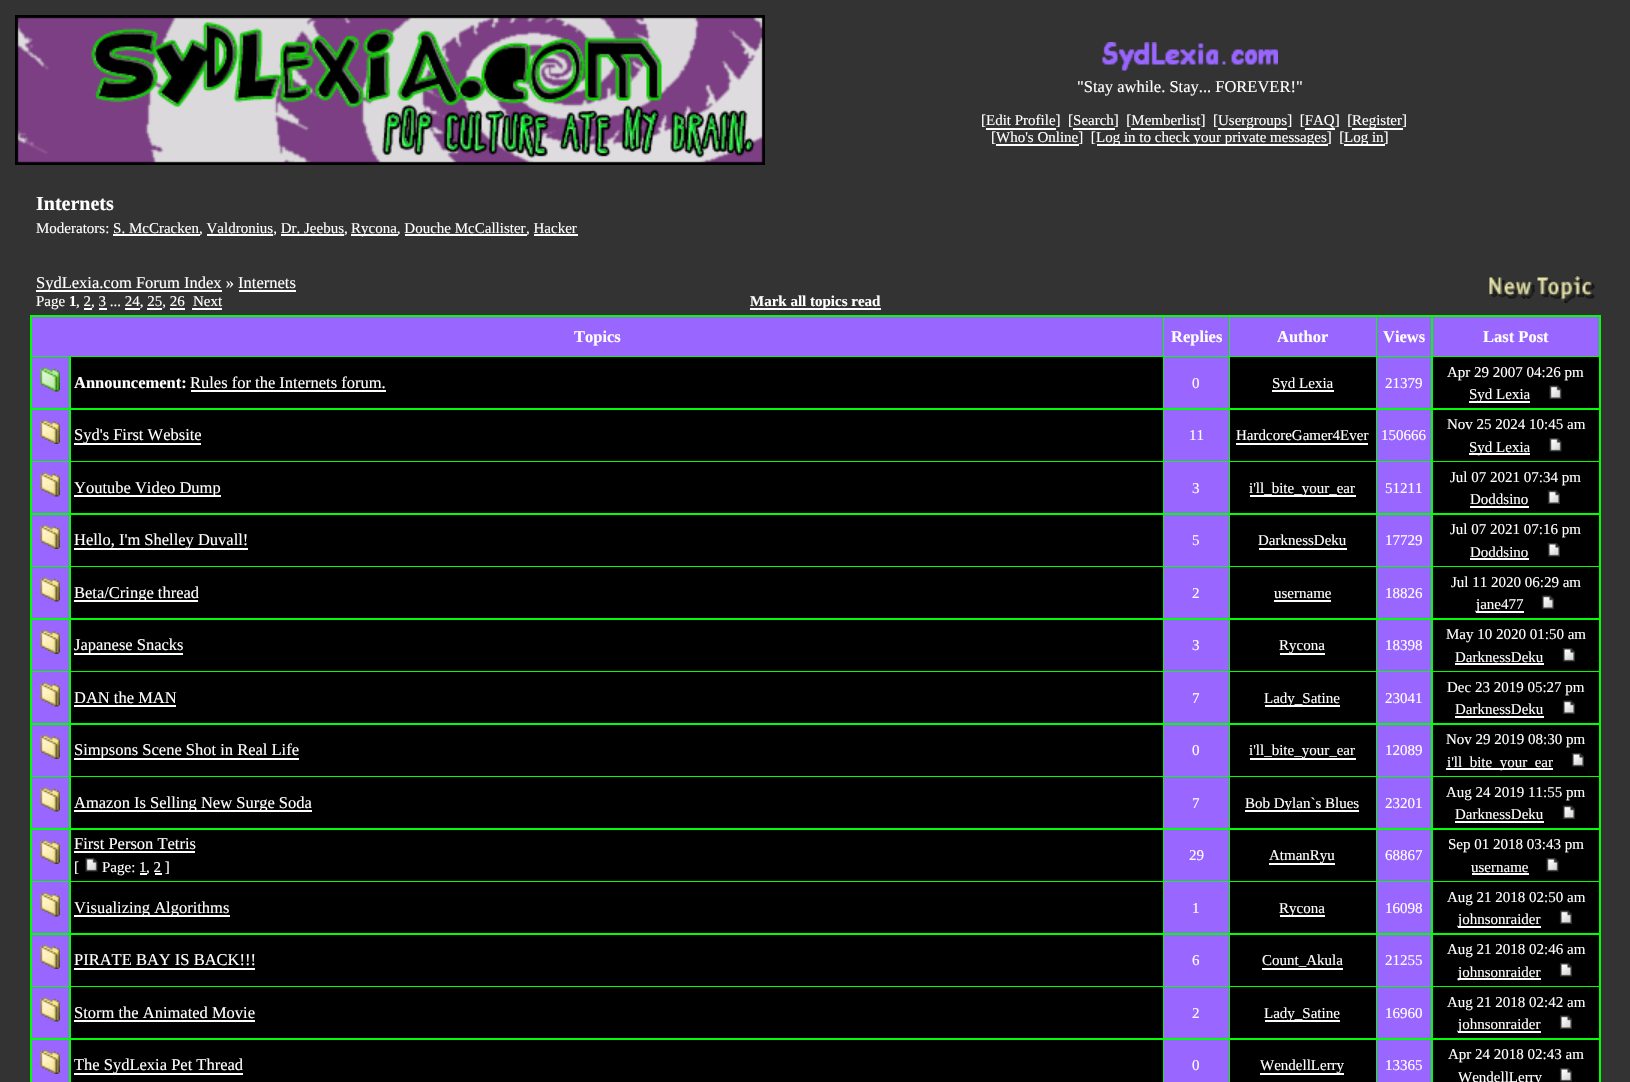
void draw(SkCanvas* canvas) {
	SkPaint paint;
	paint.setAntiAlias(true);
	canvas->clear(0xff333333);
	canvas->drawImageRect(SkImages::DeferredFromEncodedData(SkData::MakeFromFileName("img1.png")), SkRect::MakeXYWH(15, 15, 750, 150), SkSamplingOptions());
	canvas->drawImageRect(SkImages::DeferredFromEncodedData(SkData::MakeFromFileName("img2.png")), SkRect::MakeXYWH(1102, 42, 176, 29), SkSamplingOptions());
	SkFont f1(fontMgr->matchFamilyStyle("Liberation Serif", SkFontStyle::Normal()), 16.5);
	f1.setSubpixel(true);
	paint.setColor(0xffffffff);
	canvas->drawString("\"Stay awhile. Stay... FOREVER!\"", 1077, 92, f1, paint);
	SkFont f2(fontMgr->matchFamilyStyle("Liberation Serif", SkFontStyle::Normal()), 15);
	f2.setSubpixel(true);
	canvas->drawString("[Edit Profile]  [Search]  [Memberlist]  [", 981, 125, f2, paint);
	canvas->drawRect(SkRect::MakeXYWH(1218, 128, 69, 2), paint);
	canvas->drawString("Usergroups]  [FAQ]  [", 1218, 125, f2, paint);
	canvas->drawRect(SkRect::MakeXYWH(1352, 128, 51, 2), paint);
	canvas->drawString("Register]", 1352, 125, f2, paint);
	canvas->drawRect(SkRect::MakeXYWH(986, 128, 70, 2), paint);
	canvas->drawRect(SkRect::MakeXYWH(1073, 128, 42, 2), paint);
	canvas->drawRect(SkRect::MakeXYWH(1131, 128, 69, 2), paint);
	canvas->drawRect(SkRect::MakeXYWH(1305, 128, 30, 2), paint);
	canvas->drawString("[Who's Online]  [", 991, 142, f2, paint);
	canvas->drawRect(SkRect::MakeXYWH(1097, 144, 231, 2), paint);
	canvas->drawString("Log in to check your private messages]  [", 1096, 142, f2, paint);
	canvas->drawRect(SkRect::MakeXYWH(1344, 144, 41, 2), paint);
	canvas->drawString("Log in]", 1344, 142, f2, paint);
	canvas->drawRect(SkRect::MakeXYWH(996, 144, 83, 2), paint);
	SkFont f3(fontMgr->matchFamilyStyle("Liberation Serif", SkFontStyle::Bold()), 20);
	f3.setSubpixel(true);
	canvas->drawString("Internets", 36, 210, f3, paint);
	canvas->drawString("Moderators: S. McCracken", 36, 233, f2, paint);
	canvas->drawRect(SkRect::MakeXYWH(113, 234, 87, 2), paint);
	canvas->drawString(", Valdronius, Dr. Jeebus,", 199, 233, f2, paint);
	canvas->drawRect(SkRect::MakeXYWH(207, 234, 66, 2), paint);
	canvas->drawRect(SkRect::MakeXYWH(281, 234, 63, 2), paint);
	canvas->drawRect(SkRect::MakeXYWH(351, 234, 47, 2), paint);
	canvas->drawString("Rycona, Douche McCallister", 351, 233, f2, paint);
	canvas->drawRect(SkRect::MakeXYWH(405, 234, 122, 2), paint);
	canvas->drawString(", Hacker", 526, 233, f2, paint);
	canvas->drawRect(SkRect::MakeXYWH(534, 234, 44, 2), paint);
	canvas->drawRect(SkRect::MakeXYWH(36, 290, 186, 2), paint);
	canvas->drawString("SydLexia.com Forum Index » Internets", 36, 288, f1, paint);
	canvas->drawRect(SkRect::MakeXYWH(239, 290, 57, 2), paint);
	canvas->drawString("Page", 36, 306, f2, paint);
	SkFont f4(fontMgr->matchFamilyStyle("Liberation Serif", SkFontStyle::Bold()), 15);
	f4.setSubpixel(true);
	canvas->drawString("1", 69, 306, f4, paint);
	canvas->drawString(", 2, 3 ... 24, 25, 26", 76, 306, f2, paint);
	canvas->drawRect(SkRect::MakeXYWH(84, 308, 8, 2), paint);
	canvas->drawRect(SkRect::MakeXYWH(99, 308, 8, 2), paint);
	canvas->drawRect(SkRect::MakeXYWH(125, 308, 15, 2), paint);
	canvas->drawRect(SkRect::MakeXYWH(147, 308, 15, 2), paint);
	canvas->drawRect(SkRect::MakeXYWH(170, 308, 15, 2), paint);
	canvas->drawString("Next", 193, 306, f2, paint);
	canvas->drawRect(SkRect::MakeXYWH(192, 308, 30, 2), paint);
	canvas->drawRect(SkRect::MakeXYWH(750, 308, 131, 2), paint);
	canvas->drawString("Mark all topics read", 750, 306, f4, paint);
	canvas->drawImageRect(SkImages::DeferredFromEncodedData(SkData::MakeFromFileName("img3.png")), SkRect::MakeXYWH(1489, 276, 106, 27), SkSamplingOptions());
	paint.setColor(0xff00ff00);
	canvas->drawRect(SkRect::MakeXYWH(30, 315, 1571, 767), paint);
	paint.setColor(0xff9966ff);
	canvas->drawRect(SkRect::MakeXYWH(32, 317, 1131, 39), paint);
	SkFont f5(fontMgr->matchFamilyStyle("Liberation Serif", SkFontStyle::Bold()), 16.5);
	f5.setSubpixel(true);
	paint.setColor(0xffffffff);
	canvas->drawString("Topics", 574, 342, f5, paint);
	paint.setColor(0xff9966ff);
	canvas->drawRect(SkRect::MakeXYWH(1164, 317, 65, 39), paint);
	paint.setColor(0xffffffff);
	canvas->drawString("Replies", 1171, 342, f5, paint);
	paint.setColor(0xff9966ff);
	canvas->drawRect(SkRect::MakeXYWH(1230, 317, 146, 39), paint);
	paint.setColor(0xffffffff);
	canvas->drawString("Author", 1277, 342, f5, paint);
	paint.setColor(0xff9966ff);
	canvas->drawRect(SkRect::MakeXYWH(1377, 317, 54, 39), paint);
	paint.setColor(0xffffffff);
	canvas->drawString("Views", 1383, 342, f5, paint);
	paint.setColor(0xff9966ff);
	canvas->drawRect(SkRect::MakeXYWH(1433, 317, 166, 39), paint);
	paint.setColor(0xffffffff);
	canvas->drawString("Last Post", 1483, 342, f5, paint);
	paint.setColor(0xff9966ff);
	canvas->drawRect(SkRect::MakeXYWH(32, 357, 37, 51), paint);
	canvas->drawImageRect(SkImages::DeferredFromEncodedData(SkData::MakeFromFileName("img4.png")), SkRect::MakeXYWH(40, 367, 20, 25), SkSamplingOptions());
	paint.setColor(0xff000000);
	canvas->drawRect(SkRect::MakeXYWH(71, 357, 1092, 51), paint);
	paint.setColor(0xffffffff);
	canvas->drawString("Announcement:", 74, 388, f5, paint);
	canvas->drawString("Rules for the Internets forum.", 190, 388, f1, paint);
	canvas->drawRect(SkRect::MakeXYWH(191, 390, 195, 2), paint);
	paint.setColor(0xff9966ff);
	canvas->drawRect(SkRect::MakeXYWH(1164, 357, 65, 51), paint);
	paint.setColor(0xffffffff);
	canvas->drawString("0", 1192, 388, f2, paint);
	paint.setColor(0xff000000);
	canvas->drawRect(SkRect::MakeXYWH(1230, 357, 146, 51), paint);
	paint.setColor(0xffffffff);
	canvas->drawRect(SkRect::MakeXYWH(1272, 390, 62, 2), paint);
	canvas->drawString("Syd Lexia", 1272, 388, f2, paint);
	paint.setColor(0xff9966ff);
	canvas->drawRect(SkRect::MakeXYWH(1377, 357, 54, 51), paint);
	paint.setColor(0xffffffff);
	canvas->drawString("21379", 1385, 388, f2, paint);
	paint.setColor(0xff000000);
	canvas->drawRect(SkRect::MakeXYWH(1433, 357, 166, 51), paint);
	paint.setColor(0xffffffff);
	canvas->drawString("Apr 29 2007 04:26 pm", 1447, 377, f2, paint);
	canvas->drawRect(SkRect::MakeXYWH(1469, 401, 61, 2), paint);
	canvas->drawString("Syd Lexia", 1469, 399, f2, paint);
	canvas->drawImageRect(SkImages::DeferredFromEncodedData(SkData::MakeFromFileName("img5.png")), SkRect::MakeXYWH(1549, 385, 13, 14), SkSamplingOptions());
	paint.setColor(0xff9966ff);
	canvas->drawRect(SkRect::MakeXYWH(32, 410, 37, 51), paint);
	canvas->drawImageRect(SkImages::DeferredFromEncodedData(SkData::MakeFromFileName("img6.png")), SkRect::MakeXYWH(40, 420, 20, 24), SkSamplingOptions());
	paint.setColor(0xff000000);
	canvas->drawRect(SkRect::MakeXYWH(71, 410, 1092, 51), paint);
	paint.setColor(0xffffffff);
	canvas->drawRect(SkRect::MakeXYWH(74, 443, 127, 2), paint);
	canvas->drawString("Syd's First Website", 74, 440, f1, paint);
	paint.setColor(0xff9966ff);
	canvas->drawRect(SkRect::MakeXYWH(1164, 410, 65, 51), paint);
	paint.setColor(0xffffffff);
	canvas->drawString("11", 1189, 440, f2, paint);
	paint.setColor(0xff000000);
	canvas->drawRect(SkRect::MakeXYWH(1230, 410, 146, 51), paint);
	paint.setColor(0xffffffff);
	canvas->drawString("HardcoreGamer4Ever", 1236, 440, f2, paint);
	canvas->drawRect(SkRect::MakeXYWH(1236, 443, 132, 2), paint);
	paint.setColor(0xff9966ff);
	canvas->drawRect(SkRect::MakeXYWH(1377, 410, 54, 51), paint);
	paint.setColor(0xffffffff);
	canvas->drawString("150666", 1381, 440, f2, paint);
	paint.setColor(0xff000000);
	canvas->drawRect(SkRect::MakeXYWH(1433, 410, 166, 51), paint);
	paint.setColor(0xffffffff);
	canvas->drawString("Nov 25 2024 10:45 am", 1447, 429, f2, paint);
	canvas->drawRect(SkRect::MakeXYWH(1469, 453, 61, 2), paint);
	canvas->drawString("Syd Lexia", 1469, 452, f2, paint);
	canvas->drawImageRect(SkImages::DeferredFromEncodedData(SkData::MakeFromFileName("img7.png")), SkRect::MakeXYWH(1549, 438, 13, 14), SkSamplingOptions());
	paint.setColor(0xff9966ff);
	canvas->drawRect(SkRect::MakeXYWH(32, 462, 37, 51), paint);
	canvas->drawImageRect(SkImages::DeferredFromEncodedData(SkData::MakeFromFileName("img8.png")), SkRect::MakeXYWH(40, 472, 20, 25), SkSamplingOptions());
	paint.setColor(0xff000000);
	canvas->drawRect(SkRect::MakeXYWH(71, 462, 1092, 51), paint);
	paint.setColor(0xffffffff);
	canvas->drawRect(SkRect::MakeXYWH(74, 495, 147, 2), paint);
	canvas->drawString("Youtube Video Dump", 74, 493, f1, paint);
	paint.setColor(0xff9966ff);
	canvas->drawRect(SkRect::MakeXYWH(1164, 462, 65, 51), paint);
	paint.setColor(0xffffffff);
	canvas->drawString("3", 1192, 493, f2, paint);
	paint.setColor(0xff000000);
	canvas->drawRect(SkRect::MakeXYWH(1230, 462, 146, 51), paint);
	paint.setColor(0xffffffff);
	canvas->drawRect(SkRect::MakeXYWH(1250, 495, 106, 2), paint);
	canvas->drawString("i'll_bite_your_ear", 1249, 493, f2, paint);
	paint.setColor(0xff9966ff);
	canvas->drawRect(SkRect::MakeXYWH(1377, 462, 54, 51), paint);
	paint.setColor(0xffffffff);
	canvas->drawString("51211", 1385, 493, f2, paint);
	paint.setColor(0xff000000);
	canvas->drawRect(SkRect::MakeXYWH(1433, 462, 166, 51), paint);
	paint.setColor(0xffffffff);
	canvas->drawString("Jul 07 2021 07:34 pm", 1450, 482, f2, paint);
	canvas->drawString("Doddsino", 1470, 504, f2, paint);
	canvas->drawRect(SkRect::MakeXYWH(1470, 506, 59, 2), paint);
	canvas->drawImageRect(SkImages::DeferredFromEncodedData(SkData::MakeFromFileName("img9.png")), SkRect::MakeXYWH(1547, 490, 13, 14), SkSamplingOptions());
	paint.setColor(0xff9966ff);
	canvas->drawRect(SkRect::MakeXYWH(32, 515, 37, 51), paint);
	canvas->drawImageRect(SkImages::DeferredFromEncodedData(SkData::MakeFromFileName("img6.png")), SkRect::MakeXYWH(40, 525, 20, 24), SkSamplingOptions());
	paint.setColor(0xff000000);
	canvas->drawRect(SkRect::MakeXYWH(71, 515, 1092, 51), paint);
	paint.setColor(0xffffffff);
	canvas->drawRect(SkRect::MakeXYWH(74, 548, 174, 2), paint);
	canvas->drawString("Hello, I'm Shelley Duvall!", 74, 545, f1, paint);
	paint.setColor(0xff9966ff);
	canvas->drawRect(SkRect::MakeXYWH(1164, 515, 65, 51), paint);
	paint.setColor(0xffffffff);
	canvas->drawString("5", 1192, 545, f2, paint);
	paint.setColor(0xff000000);
	canvas->drawRect(SkRect::MakeXYWH(1230, 515, 146, 51), paint);
	paint.setColor(0xffffffff);
	canvas->drawString("DarknessDeku", 1258, 545, f2, paint);
	canvas->drawRect(SkRect::MakeXYWH(1259, 548, 88, 2), paint);
	paint.setColor(0xff9966ff);
	canvas->drawRect(SkRect::MakeXYWH(1377, 515, 54, 51), paint);
	paint.setColor(0xffffffff);
	canvas->drawString("17729", 1385, 545, f2, paint);
	paint.setColor(0xff000000);
	canvas->drawRect(SkRect::MakeXYWH(1433, 515, 166, 51), paint);
	paint.setColor(0xffffffff);
	canvas->drawString("Jul 07 2021 07:16 pm", 1450, 534, f2, paint);
	canvas->drawString("Doddsino", 1470, 557, f2, paint);
	canvas->drawRect(SkRect::MakeXYWH(1470, 558, 59, 2), paint);
	canvas->drawImageRect(SkImages::DeferredFromEncodedData(SkData::MakeFromFileName("img10.png")), SkRect::MakeXYWH(1547, 543, 13, 14), SkSamplingOptions());
	paint.setColor(0xff9966ff);
	canvas->drawRect(SkRect::MakeXYWH(32, 567, 37, 51), paint);
	canvas->drawImageRect(SkImages::DeferredFromEncodedData(SkData::MakeFromFileName("img8.png")), SkRect::MakeXYWH(40, 577, 20, 25), SkSamplingOptions());
	paint.setColor(0xff000000);
	canvas->drawRect(SkRect::MakeXYWH(71, 567, 1092, 51), paint);
	paint.setColor(0xffffffff);
	canvas->drawRect(SkRect::MakeXYWH(74, 600, 124, 2), paint);
	canvas->drawString("Beta/Cringe thread", 74, 598, f1, paint);
	paint.setColor(0xff9966ff);
	canvas->drawRect(SkRect::MakeXYWH(1164, 567, 65, 51), paint);
	paint.setColor(0xffffffff);
	canvas->drawString("2", 1192, 598, f2, paint);
	paint.setColor(0xff000000);
	canvas->drawRect(SkRect::MakeXYWH(1230, 567, 146, 51), paint);
	paint.setColor(0xffffffff);
	canvas->drawString("username", 1274, 598, f2, paint);
	canvas->drawRect(SkRect::MakeXYWH(1274, 600, 57, 2), paint);
	paint.setColor(0xff9966ff);
	canvas->drawRect(SkRect::MakeXYWH(1377, 567, 54, 51), paint);
	paint.setColor(0xffffffff);
	canvas->drawString("18826", 1385, 598, f2, paint);
	paint.setColor(0xff000000);
	canvas->drawRect(SkRect::MakeXYWH(1433, 567, 166, 51), paint);
	paint.setColor(0xffffffff);
	canvas->drawString("Jul 11 2020 06:29 am", 1451, 587, f2, paint);
	canvas->drawRect(SkRect::MakeXYWH(1476, 611, 48, 2), paint);
	canvas->drawString("jane477", 1476, 609, f2, paint);
	canvas->drawImageRect(SkImages::DeferredFromEncodedData(SkData::MakeFromFileName("img9.png")), SkRect::MakeXYWH(1541, 595, 13, 14), SkSamplingOptions());
	paint.setColor(0xff9966ff);
	canvas->drawRect(SkRect::MakeXYWH(32, 620, 37, 51), paint);
	canvas->drawImageRect(SkImages::DeferredFromEncodedData(SkData::MakeFromFileName("img6.png")), SkRect::MakeXYWH(40, 630, 20, 24), SkSamplingOptions());
	paint.setColor(0xff000000);
	canvas->drawRect(SkRect::MakeXYWH(71, 620, 1092, 51), paint);
	paint.setColor(0xffffffff);
	canvas->drawRect(SkRect::MakeXYWH(74, 653, 109, 2), paint);
	canvas->drawString("Japanese Snacks", 74, 650, f1, paint);
	paint.setColor(0xff9966ff);
	canvas->drawRect(SkRect::MakeXYWH(1164, 620, 65, 51), paint);
	paint.setColor(0xffffffff);
	canvas->drawString("3", 1192, 650, f2, paint);
	paint.setColor(0xff000000);
	canvas->drawRect(SkRect::MakeXYWH(1230, 620, 146, 51), paint);
	paint.setColor(0xffffffff);
	canvas->drawRect(SkRect::MakeXYWH(1280, 653, 45, 2), paint);
	canvas->drawString("Rycona", 1279, 650, f2, paint);
	paint.setColor(0xff9966ff);
	canvas->drawRect(SkRect::MakeXYWH(1377, 620, 54, 51), paint);
	paint.setColor(0xffffffff);
	canvas->drawString("18398", 1385, 650, f2, paint);
	paint.setColor(0xff000000);
	canvas->drawRect(SkRect::MakeXYWH(1433, 620, 166, 51), paint);
	paint.setColor(0xffffffff);
	canvas->drawString("May 10 2020 01:50 am", 1446, 639, f2, paint);
	canvas->drawString("DarknessDeku", 1455, 662, f2, paint);
	canvas->drawRect(SkRect::MakeXYWH(1455, 663, 89, 2), paint);
	canvas->drawImageRect(SkImages::DeferredFromEncodedData(SkData::MakeFromFileName("img10.png")), SkRect::MakeXYWH(1562, 648, 13, 14), SkSamplingOptions());
	paint.setColor(0xff9966ff);
	canvas->drawRect(SkRect::MakeXYWH(32, 672, 37, 51), paint);
	canvas->drawImageRect(SkImages::DeferredFromEncodedData(SkData::MakeFromFileName("img8.png")), SkRect::MakeXYWH(40, 682, 20, 25), SkSamplingOptions());
	paint.setColor(0xff000000);
	canvas->drawRect(SkRect::MakeXYWH(71, 672, 1092, 51), paint);
	paint.setColor(0xffffffff);
	canvas->drawString("DAN the MAN", 74, 703, f1, paint);
	canvas->drawRect(SkRect::MakeXYWH(74, 705, 102, 2), paint);
	paint.setColor(0xff9966ff);
	canvas->drawRect(SkRect::MakeXYWH(1164, 672, 65, 51), paint);
	paint.setColor(0xffffffff);
	canvas->drawString("7", 1192, 703, f2, paint);
	paint.setColor(0xff000000);
	canvas->drawRect(SkRect::MakeXYWH(1230, 672, 146, 51), paint);
	paint.setColor(0xffffffff);
	canvas->drawRect(SkRect::MakeXYWH(1265, 705, 75, 2), paint);
	canvas->drawString("Lady_Satine", 1264, 703, f2, paint);
	paint.setColor(0xff9966ff);
	canvas->drawRect(SkRect::MakeXYWH(1377, 672, 54, 51), paint);
	paint.setColor(0xffffffff);
	canvas->drawString("23041", 1385, 703, f2, paint);
	paint.setColor(0xff000000);
	canvas->drawRect(SkRect::MakeXYWH(1433, 672, 166, 51), paint);
	paint.setColor(0xffffffff);
	canvas->drawString("Dec 23 2019 05:27 pm", 1447, 692, f2, paint);
	canvas->drawString("DarknessDeku", 1455, 714, f2, paint);
	canvas->drawRect(SkRect::MakeXYWH(1455, 716, 89, 2), paint);
	canvas->drawImageRect(SkImages::DeferredFromEncodedData(SkData::MakeFromFileName("img9.png")), SkRect::MakeXYWH(1562, 700, 13, 14), SkSamplingOptions());
	paint.setColor(0xff9966ff);
	canvas->drawRect(SkRect::MakeXYWH(32, 725, 37, 51), paint);
	canvas->drawImageRect(SkImages::DeferredFromEncodedData(SkData::MakeFromFileName("img6.png")), SkRect::MakeXYWH(40, 735, 20, 24), SkSamplingOptions());
	paint.setColor(0xff000000);
	canvas->drawRect(SkRect::MakeXYWH(71, 725, 1092, 51), paint);
	paint.setColor(0xffffffff);
	canvas->drawRect(SkRect::MakeXYWH(74, 758, 225, 2), paint);
	canvas->drawString("Simpsons Scene Shot in Real Life", 74, 755, f1, paint);
	paint.setColor(0xff9966ff);
	canvas->drawRect(SkRect::MakeXYWH(1164, 725, 65, 51), paint);
	paint.setColor(0xffffffff);
	canvas->drawString("0", 1192, 755, f2, paint);
	paint.setColor(0xff000000);
	canvas->drawRect(SkRect::MakeXYWH(1230, 725, 146, 51), paint);
	paint.setColor(0xffffffff);
	canvas->drawRect(SkRect::MakeXYWH(1250, 758, 106, 2), paint);
	canvas->drawString("i'll_bite_your_ear", 1249, 755, f2, paint);
	paint.setColor(0xff9966ff);
	canvas->drawRect(SkRect::MakeXYWH(1377, 725, 54, 51), paint);
	paint.setColor(0xffffffff);
	canvas->drawString("12089", 1385, 755, f2, paint);
	paint.setColor(0xff000000);
	canvas->drawRect(SkRect::MakeXYWH(1433, 725, 166, 51), paint);
	paint.setColor(0xffffffff);
	canvas->drawString("Nov 29 2019 08:30 pm", 1446, 744, f2, paint);
	canvas->drawRect(SkRect::MakeXYWH(1446, 768, 107, 2), paint);
	canvas->drawString("i'll_bite_your_ear", 1447, 767, f2, paint);
	canvas->drawImageRect(SkImages::DeferredFromEncodedData(SkData::MakeFromFileName("img10.png")), SkRect::MakeXYWH(1571, 753, 13, 14), SkSamplingOptions());
	paint.setColor(0xff9966ff);
	canvas->drawRect(SkRect::MakeXYWH(32, 777, 37, 51), paint);
	canvas->drawImageRect(SkImages::DeferredFromEncodedData(SkData::MakeFromFileName("img8.png")), SkRect::MakeXYWH(40, 787, 20, 25), SkSamplingOptions());
	paint.setColor(0xff000000);
	canvas->drawRect(SkRect::MakeXYWH(71, 777, 1092, 51), paint);
	paint.setColor(0xffffffff);
	canvas->drawRect(SkRect::MakeXYWH(74, 810, 238, 2), paint);
	canvas->drawString("Amazon Is Selling New Surge Soda", 74, 808, f1, paint);
	paint.setColor(0xff9966ff);
	canvas->drawRect(SkRect::MakeXYWH(1164, 777, 65, 51), paint);
	paint.setColor(0xffffffff);
	canvas->drawString("7", 1192, 808, f2, paint);
	paint.setColor(0xff000000);
	canvas->drawRect(SkRect::MakeXYWH(1230, 777, 146, 51), paint);
	paint.setColor(0xffffffff);
	canvas->drawRect(SkRect::MakeXYWH(1245, 810, 114, 2), paint);
	canvas->drawString("Bob Dylan`s Blues", 1245, 808, f2, paint);
	paint.setColor(0xff9966ff);
	canvas->drawRect(SkRect::MakeXYWH(1377, 777, 54, 51), paint);
	paint.setColor(0xffffffff);
	canvas->drawString("23201", 1385, 808, f2, paint);
	paint.setColor(0xff000000);
	canvas->drawRect(SkRect::MakeXYWH(1433, 777, 166, 51), paint);
	paint.setColor(0xffffffff);
	canvas->drawString("Aug 24 2019 11:55 pm", 1446, 797, f2, paint);
	canvas->drawString("DarknessDeku", 1455, 819, f2, paint);
	canvas->drawRect(SkRect::MakeXYWH(1455, 821, 89, 2), paint);
	canvas->drawImageRect(SkImages::DeferredFromEncodedData(SkData::MakeFromFileName("img9.png")), SkRect::MakeXYWH(1562, 805, 13, 14), SkSamplingOptions());
	paint.setColor(0xff9966ff);
	canvas->drawRect(SkRect::MakeXYWH(32, 830, 37, 51), paint);
	canvas->drawImageRect(SkImages::DeferredFromEncodedData(SkData::MakeFromFileName("img6.png")), SkRect::MakeXYWH(40, 840, 20, 24), SkSamplingOptions());
	paint.setColor(0xff000000);
	canvas->drawRect(SkRect::MakeXYWH(71, 830, 1092, 51), paint);
	paint.setColor(0xffffffff);
	canvas->drawString("First Person Tetris", 74, 849, f1, paint);
	canvas->drawRect(SkRect::MakeXYWH(74, 851, 121, 2), paint);
	canvas->drawString("[", 74, 872, f2, paint);
	canvas->drawImageRect(SkImages::DeferredFromEncodedData(SkData::MakeFromFileName("img11.png")), SkRect::MakeXYWH(85, 858, 13, 14), SkSamplingOptions());
	canvas->drawString("Page: 1", 102, 872, f2, paint);
	canvas->drawRect(SkRect::MakeXYWH(140, 873, 7, 2), paint);
	canvas->drawString(", 2 ]", 146, 872, f2, paint);
	canvas->drawRect(SkRect::MakeXYWH(155, 873, 7, 2), paint);
	paint.setColor(0xff9966ff);
	canvas->drawRect(SkRect::MakeXYWH(1164, 830, 65, 51), paint);
	paint.setColor(0xffffffff);
	canvas->drawString("29", 1189, 860, f2, paint);
	paint.setColor(0xff000000);
	canvas->drawRect(SkRect::MakeXYWH(1230, 830, 146, 51), paint);
	paint.setColor(0xffffffff);
	canvas->drawRect(SkRect::MakeXYWH(1269, 863, 66, 2), paint);
	canvas->drawString("AtmanRyu", 1269, 860, f2, paint);
	paint.setColor(0xff9966ff);
	canvas->drawRect(SkRect::MakeXYWH(1377, 830, 54, 51), paint);
	paint.setColor(0xffffffff);
	canvas->drawString("68867", 1385, 860, f2, paint);
	paint.setColor(0xff000000);
	canvas->drawRect(SkRect::MakeXYWH(1433, 830, 166, 51), paint);
	paint.setColor(0xffffffff);
	canvas->drawString("Sep 01 2018 03:43 pm", 1448, 849, f2, paint);
	canvas->drawString("username", 1471, 872, f2, paint);
	canvas->drawRect(SkRect::MakeXYWH(1472, 873, 57, 2), paint);
	canvas->drawImageRect(SkImages::DeferredFromEncodedData(SkData::MakeFromFileName("img7.png")), SkRect::MakeXYWH(1546, 858, 13, 14), SkSamplingOptions());
	paint.setColor(0xff9966ff);
	canvas->drawRect(SkRect::MakeXYWH(32, 882, 37, 51), paint);
	canvas->drawImageRect(SkImages::DeferredFromEncodedData(SkData::MakeFromFileName("img8.png")), SkRect::MakeXYWH(40, 892, 20, 25), SkSamplingOptions());
	paint.setColor(0xff000000);
	canvas->drawRect(SkRect::MakeXYWH(71, 882, 1092, 51), paint);
	paint.setColor(0xffffffff);
	canvas->drawRect(SkRect::MakeXYWH(74, 915, 156, 2), paint);
	canvas->drawString("Visualizing Algorithms", 74, 913, f1, paint);
	paint.setColor(0xff9966ff);
	canvas->drawRect(SkRect::MakeXYWH(1164, 882, 65, 51), paint);
	paint.setColor(0xffffffff);
	canvas->drawString("1", 1192, 913, f2, paint);
	paint.setColor(0xff000000);
	canvas->drawRect(SkRect::MakeXYWH(1230, 882, 146, 51), paint);
	paint.setColor(0xffffffff);
	canvas->drawRect(SkRect::MakeXYWH(1280, 915, 45, 2), paint);
	canvas->drawString("Rycona", 1279, 913, f2, paint);
	paint.setColor(0xff9966ff);
	canvas->drawRect(SkRect::MakeXYWH(1377, 882, 54, 51), paint);
	paint.setColor(0xffffffff);
	canvas->drawString("16098", 1385, 913, f2, paint);
	paint.setColor(0xff000000);
	canvas->drawRect(SkRect::MakeXYWH(1433, 882, 166, 51), paint);
	paint.setColor(0xffffffff);
	canvas->drawString("Aug 21 2018 02:50 am", 1447, 902, f2, paint);
	canvas->drawRect(SkRect::MakeXYWH(1458, 926, 83, 2), paint);
	canvas->drawString("johnsonraider", 1458, 924, f2, paint);
	canvas->drawImageRect(SkImages::DeferredFromEncodedData(SkData::MakeFromFileName("img9.png")), SkRect::MakeXYWH(1559, 910, 13, 14), SkSamplingOptions());
	paint.setColor(0xff9966ff);
	canvas->drawRect(SkRect::MakeXYWH(32, 935, 37, 51), paint);
	canvas->drawImageRect(SkImages::DeferredFromEncodedData(SkData::MakeFromFileName("img6.png")), SkRect::MakeXYWH(40, 945, 20, 24), SkSamplingOptions());
	paint.setColor(0xff000000);
	canvas->drawRect(SkRect::MakeXYWH(71, 935, 1092, 51), paint);
	paint.setColor(0xffffffff);
	canvas->drawString("PIRATE BAY IS BACK!!!", 74, 965, f1, paint);
	canvas->drawRect(SkRect::MakeXYWH(74, 968, 181, 2), paint);
	paint.setColor(0xff9966ff);
	canvas->drawRect(SkRect::MakeXYWH(1164, 935, 65, 51), paint);
	paint.setColor(0xffffffff);
	canvas->drawString("6", 1192, 965, f2, paint);
	paint.setColor(0xff000000);
	canvas->drawRect(SkRect::MakeXYWH(1230, 935, 146, 51), paint);
	paint.setColor(0xffffffff);
	canvas->drawString("Count_Akula", 1262, 965, f2, paint);
	canvas->drawRect(SkRect::MakeXYWH(1262, 968, 81, 2), paint);
	paint.setColor(0xff9966ff);
	canvas->drawRect(SkRect::MakeXYWH(1377, 935, 54, 51), paint);
	paint.setColor(0xffffffff);
	canvas->drawString("21255", 1385, 965, f2, paint);
	paint.setColor(0xff000000);
	canvas->drawRect(SkRect::MakeXYWH(1433, 935, 166, 51), paint);
	paint.setColor(0xffffffff);
	canvas->drawString("Aug 21 2018 02:46 am", 1447, 954, f2, paint);
	canvas->drawRect(SkRect::MakeXYWH(1458, 978, 83, 2), paint);
	canvas->drawString("johnsonraider", 1458, 977, f2, paint);
	canvas->drawImageRect(SkImages::DeferredFromEncodedData(SkData::MakeFromFileName("img10.png")), SkRect::MakeXYWH(1559, 963, 13, 14), SkSamplingOptions());
	paint.setColor(0xff9966ff);
	canvas->drawRect(SkRect::MakeXYWH(32, 987, 37, 51), paint);
	canvas->drawImageRect(SkImages::DeferredFromEncodedData(SkData::MakeFromFileName("img8.png")), SkRect::MakeXYWH(40, 997, 20, 25), SkSamplingOptions());
	paint.setColor(0xff000000);
	canvas->drawRect(SkRect::MakeXYWH(71, 987, 1092, 51), paint);
	paint.setColor(0xffffffff);
	canvas->drawString("Storm the Animated Movie", 74, 1018, f1, paint);
	canvas->drawRect(SkRect::MakeXYWH(74, 1020, 181, 2), paint);
	paint.setColor(0xff9966ff);
	canvas->drawRect(SkRect::MakeXYWH(1164, 987, 65, 51), paint);
	paint.setColor(0xffffffff);
	canvas->drawString("2", 1192, 1018, f2, paint);
	paint.setColor(0xff000000);
	canvas->drawRect(SkRect::MakeXYWH(1230, 987, 146, 51), paint);
	paint.setColor(0xffffffff);
	canvas->drawRect(SkRect::MakeXYWH(1265, 1020, 75, 2), paint);
	canvas->drawString("Lady_Satine", 1264, 1018, f2, paint);
	paint.setColor(0xff9966ff);
	canvas->drawRect(SkRect::MakeXYWH(1377, 987, 54, 51), paint);
	paint.setColor(0xffffffff);
	canvas->drawString("16960", 1385, 1018, f2, paint);
	paint.setColor(0xff000000);
	canvas->drawRect(SkRect::MakeXYWH(1433, 987, 166, 51), paint);
	paint.setColor(0xffffffff);
	canvas->drawString("Aug 21 2018 02:42 am", 1447, 1007, f2, paint);
	canvas->drawRect(SkRect::MakeXYWH(1458, 1031, 83, 2), paint);
	canvas->drawString("johnsonraider", 1458, 1029, f2, paint);
	canvas->drawImageRect(SkImages::DeferredFromEncodedData(SkData::MakeFromFileName("img9.png")), SkRect::MakeXYWH(1559, 1015, 13, 14), SkSamplingOptions());
	paint.setColor(0xff9966ff);
	canvas->drawRect(SkRect::MakeXYWH(32, 1040, 37, 42), paint);
	canvas->drawImageRect(SkImages::DeferredFromEncodedData(SkData::MakeFromFileName("img6.png")), SkRect::MakeXYWH(40, 1050, 20, 24), SkSamplingOptions());
	paint.setColor(0xff000000);
	canvas->drawRect(SkRect::MakeXYWH(71, 1040, 1092, 42), paint);
	paint.setColor(0xffffffff);
	canvas->drawRect(SkRect::MakeXYWH(74, 1073, 169, 2), paint);
	canvas->drawString("The SydLexia Pet Thread", 74, 1070, f1, paint);
	paint.setColor(0xff9966ff);
	canvas->drawRect(SkRect::MakeXYWH(1164, 1040, 65, 42), paint);
	paint.setColor(0xffffffff);
	canvas->drawString("0", 1192, 1070, f2, paint);
	paint.setColor(0xff000000);
	canvas->drawRect(SkRect::MakeXYWH(1230, 1040, 146, 42), paint);
	paint.setColor(0xffffffff);
	canvas->drawRect(SkRect::MakeXYWH(1260, 1073, 84, 2), paint);
	canvas->drawString("WendellLerry", 1260, 1070, f2, paint);
	paint.setColor(0xff9966ff);
	canvas->drawRect(SkRect::MakeXYWH(1377, 1040, 54, 42), paint);
	paint.setColor(0xffffffff);
	canvas->drawString("13365", 1385, 1070, f2, paint);
	paint.setColor(0xff000000);
	canvas->drawRect(SkRect::MakeXYWH(1433, 1040, 166, 42), paint);
	paint.setColor(0xffffffff);
	canvas->drawString("Apr 24 2018 02:43 am", 1448, 1059, f2, paint);
	canvas->drawString("WendellLerry", 1458, 1082, f2, paint);
	canvas->drawImageRect(SkImages::DeferredFromEncodedData(SkData::MakeFromFileName("img10.png")), SkRect::MakeXYWH(1559, 1068, 13, 14), SkSamplingOptions());
}
